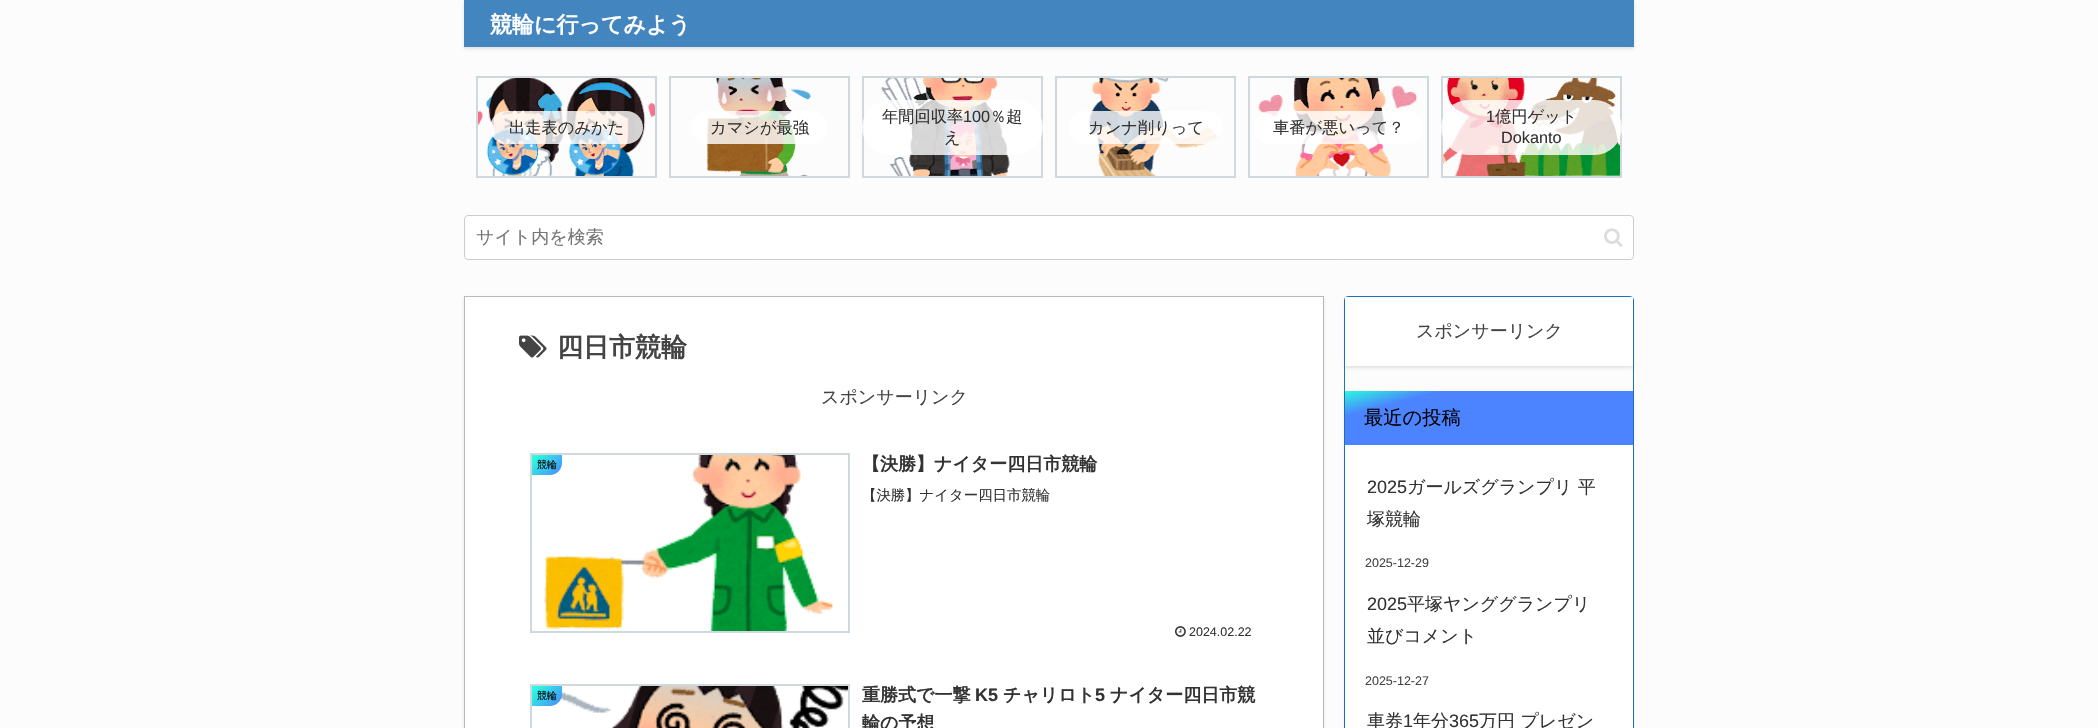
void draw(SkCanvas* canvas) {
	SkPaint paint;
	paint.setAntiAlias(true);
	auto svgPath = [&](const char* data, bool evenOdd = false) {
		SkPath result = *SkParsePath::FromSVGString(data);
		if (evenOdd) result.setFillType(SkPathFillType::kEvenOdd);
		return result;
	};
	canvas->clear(0xfffcfcfc);
	paint.setColor(0x1a000000);
	paint.setMaskFilter(SkMaskFilter::MakeBlur(kNormal_SkBlurStyle, 1.5));
	canvas->drawRect(SkRect::MakeXYWH(464, 2, 1170, 47), paint);
	paint.setMaskFilter(nullptr);
	paint.setColor(0xff4285bf);
	canvas->drawRect(SkRect::MakeXYWH(464, 0, 1170, 47), paint);
	SkFont f1(fontMgr->matchFamilyStyle("WenQuanYi Zen Hei", SkFontStyle::Bold()), 22);
	f1.setSubpixel(true);
	paint.setColor(0xffffffff);
	canvas->drawString("競輪に行ってみよう", 490, 32, f1, paint);
	paint.setStroke(true);
	paint.setStrokeWidth(2);
	paint.setColor(0xffcfd8dc);
	canvas->drawRect(SkRect::MakeXYWH(477, 77, 179, 100), paint);
	canvas->drawImageRect(SkImages::DeferredFromEncodedData(SkData::MakeFromFileName("img1.png")), SkRect::MakeXYWH(478, 78, 177, 98), SkSamplingOptions());
	paint.setStroke(false);
	paint.setColor(0xccffffff);
	canvas->drawRoundRect(SkRect::MakeXYWH(490, 111, 153, 33), 16.5, 16.5, paint);
	SkFont f2(fontMgr->matchFamilyStyle("WenQuanYi Zen Hei", SkFontStyle(500, SkFontStyle::kNormal_Width, SkFontStyle::kUpright_Slant)), 16.25);
	f2.setSubpixel(true);
	paint.setColor(0xff333333);
	canvas->drawString("出走表のみかた", 509, 133, f2, paint);
	paint.setStroke(true);
	paint.setColor(0xffcfd8dc);
	canvas->drawRect(SkRect::MakeXYWH(670, 77, 179, 100), paint);
	canvas->drawImageRect(SkImages::DeferredFromEncodedData(SkData::MakeFromFileName("img2.png")), SkRect::MakeXYWH(706, 78, 105, 98), SkSamplingOptions());
	paint.setStroke(false);
	paint.setColor(0xccffffff);
	canvas->drawRoundRect(SkRect::MakeXYWH(691, 111, 137, 33), 16.5, 16.5, paint);
	paint.setColor(0xff333333);
	canvas->drawString("カマシが最強", 710, 133, f2, paint);
	paint.setStroke(true);
	paint.setColor(0xffcfd8dc);
	canvas->drawRect(SkRect::MakeXYWH(863, 77, 179, 100), paint);
	canvas->drawImageRect(SkImages::DeferredFromEncodedData(SkData::MakeFromFileName("img3.png")), SkRect::MakeXYWH(881, 78, 129, 98), SkSamplingOptions());
	paint.setStroke(false);
	paint.setColor(0xccffffff);
	canvas->drawRoundRect(SkRect::MakeXYWH(862, 100, 181, 55), 27.5, 27.5, paint);
	paint.setColor(0xff333333);
	canvas->drawString("年間回収率", 882, 122, f2, paint);
	SkFont f3(fontMgr->matchFamilyStyle("Liberation Sans", SkFontStyle::Normal()), 16.25);
	f3.setSubpixel(true);
	canvas->drawString("100", 963, 122, f3, paint);
	canvas->drawString("％超", 990, 122, f2, paint);
	canvas->drawString("え", 944, 143, f2, paint);
	paint.setStroke(true);
	paint.setColor(0xffcfd8dc);
	canvas->drawRect(SkRect::MakeXYWH(1056, 77, 179, 100), paint);
	canvas->drawImageRect(SkImages::DeferredFromEncodedData(SkData::MakeFromFileName("img4.png")), SkRect::MakeXYWH(1089, 78, 131, 98), SkSamplingOptions());
	paint.setStroke(false);
	paint.setColor(0xccffffff);
	canvas->drawRoundRect(SkRect::MakeXYWH(1068, 111, 155, 33), 16.5, 16.5, paint);
	paint.setColor(0xff333333);
	canvas->drawString("カンナ削りって", 1088, 133, f2, paint);
	paint.setStroke(true);
	paint.setColor(0xffcfd8dc);
	canvas->drawRect(SkRect::MakeXYWH(1249, 77, 179, 100), paint);
	canvas->drawImageRect(SkImages::DeferredFromEncodedData(SkData::MakeFromFileName("img5.png")), SkRect::MakeXYWH(1258, 78, 159, 98), SkSamplingOptions());
	paint.setStroke(false);
	paint.setColor(0xccffffff);
	canvas->drawRoundRect(SkRect::MakeXYWH(1254, 111, 170, 33), 16.5, 16.5, paint);
	paint.setColor(0xff333333);
	canvas->drawString("車番が悪いって？", 1273, 133, f2, paint);
	paint.setStroke(true);
	paint.setColor(0xffcfd8dc);
	canvas->drawRect(SkRect::MakeXYWH(1442, 77, 179, 100), paint);
	canvas->drawImageRect(SkImages::DeferredFromEncodedData(SkData::MakeFromFileName("img6.png")), SkRect::MakeXYWH(1443, 78, 177, 98), SkSamplingOptions());
	paint.setStroke(false);
	paint.setColor(0xccffffff);
	canvas->drawRoundRect(SkRect::MakeXYWH(1441, 100, 181, 55), 27.5, 27.5, paint);
	paint.setColor(0xff333333);
	canvas->drawString("1", 1486, 122, f3, paint);
	canvas->drawString("億円ゲット", 1495, 122, f2, paint);
	canvas->drawString("Dokanto", 1501, 143, f3, paint);
	paint.setColor(0xffffffff);
	canvas->drawRoundRect(SkRect::MakeXYWH(464.5, 215.5, 1169, 44), 3.5, 3.5, paint);
	paint.setStroke(true);
	paint.setStrokeWidth(1);
	paint.setColor(0xffcccccc);
	canvas->drawRoundRect(SkRect::MakeXYWH(464.5, 215.5, 1169, 44), 3.5, 3.5, paint);
	SkFont f4(fontMgr->matchFamilyStyle("WenQuanYi Zen Hei", SkFontStyle(500, SkFontStyle::kNormal_Width, SkFontStyle::kUpright_Slant)), 18);
	f4.setSubpixel(true);
	paint.setStroke(false);
	paint.setColor(0xff757575);
	canvas->drawString("サイト内を検索", 476, 243, f4, paint);
	canvas->drawImageRect(SkImages::DeferredFromEncodedData(SkData::MakeFromFileName("img7.png")), SkRect::MakeXYWH(1604, 228, 19, 19), SkSamplingOptions());
	paint.setColor(0x1a000000);
	paint.setMaskFilter(SkMaskFilter::MakeBlur(kNormal_SkBlurStyle, 1.5));
	canvas->drawRect(SkRect::MakeXYWH(464, 298, 860, 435), paint);
	paint.setMaskFilter(nullptr);
	paint.setColor(0xffffffff);
	canvas->drawRect(SkRect::MakeXYWH(464.5, 296.5, 859, 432), paint);
	paint.setStroke(true);
	paint.setColor(0xffbababa);
	canvas->drawRect(SkRect::MakeXYWH(464.5, 296.5, 859, 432), paint);
	canvas->drawImageRect(SkImages::DeferredFromEncodedData(SkData::MakeFromFileName("img8.png")), SkRect::MakeXYWH(519, 335, 28, 23), SkSamplingOptions());
	SkFont f5(fontMgr->matchFamilyStyle("WenQuanYi Zen Hei", SkFontStyle::Bold()), 26);
	f5.setSubpixel(true);
	paint.setStroke(false);
	paint.setColor(0xff444444);
	canvas->drawString("四日市競輪", 557, 356, f5, paint);
	canvas->drawString("スポンサーリンク", 821, 403, f4, paint);
	paint.setStroke(true);
	paint.setStrokeWidth(2);
	paint.setColor(0xffcfd8dc);
	canvas->drawRect(SkRect::MakeXYWH(531, 454, 318, 178), paint);
	canvas->drawImageRect(SkImages::DeferredFromEncodedData(SkData::MakeFromFileName("img9.png")), SkRect::MakeXYWH(544, 455, 289, 176), SkSamplingOptions());
	paint.setStroke(false);
	{
		const SkColor colors[] = {0xff2afadf, 0xff4c83ff};
		const float stops[] = {0.1, 1};
		const SkPoint ends[] = {{535, 453}, {560, 478}};
		paint.setShader(SkGradientShader::MakeLinear(ends, colors, stops, 2, SkTileMode::kClamp));
		paint.setAlpha(255);
	}
	canvas->drawPath(svgPath("M532 455H562V463C562 469.5 556.5 475 550 475H532Z"), paint);
	SkFont f6(fontMgr->matchFamilyStyle("WenQuanYi Zen Hei", SkFontStyle(500, SkFontStyle::kNormal_Width, SkFontStyle::kUpright_Slant)), 10);
	f6.setSubpixel(true);
	paint.setShader(nullptr);
	paint.setColor(0xff000000);
	canvas->drawString("競輪", 537, 468, f6, paint);
	SkFont f7(fontMgr->matchFamilyStyle("WenQuanYi Zen Hei", SkFontStyle::Bold()), 18);
	f7.setSubpixel(true);
	paint.setColor(0xff333333);
	canvas->drawString("【決勝】ナイター四日市競輪", 862, 470, f7, paint);
	SkFont f8(fontMgr->matchFamilyStyle("WenQuanYi Zen Hei", SkFontStyle(500, SkFontStyle::kNormal_Width, SkFontStyle::kUpright_Slant)), 14.4);
	f8.setSubpixel(true);
	canvas->drawString("【決勝】ナイター四日市競輪", 862, 500, f8, paint);
	canvas->drawImageRect(SkImages::DeferredFromEncodedData(SkData::MakeFromFileName("img10.png")), SkRect::MakeXYWH(1175, 626, 11, 11), SkSamplingOptions());
	SkFont f9(fontMgr->matchFamilyStyle("Liberation Sans", SkFontStyle::Normal()), 12.5);
	f9.setSubpixel(true);
	canvas->drawString("2024.02.22", 1189, 636, f9, paint);
	paint.setStroke(true);
	paint.setColor(0xffcfd8dc);
	canvas->drawRect(SkRect::MakeXYWH(531, 685, 318, 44), paint);
	canvas->drawImageRect(SkImages::DeferredFromEncodedData(SkData::MakeFromFileName("img11.png")), SkRect::MakeXYWH(559, 686, 289, 42), SkSamplingOptions());
	paint.setStroke(false);
	{
		const SkColor colors[] = {0xff2afadf, 0xff4c83ff};
		const float stops[] = {0.1, 1};
		const SkPoint ends[] = {{535, 684}, {560, 709}};
		paint.setShader(SkGradientShader::MakeLinear(ends, colors, stops, 2, SkTileMode::kClamp));
		paint.setAlpha(255);
	}
	canvas->drawPath(svgPath("M532 686H562V694C562 700.5 556.5 706 550 706H532Z"), paint);
	paint.setShader(nullptr);
	paint.setColor(0xff000000);
	canvas->drawString("競輪", 537, 699, f6, paint);
	paint.setColor(0xff333333);
	canvas->drawString("重勝式で一撃", 862, 701, f7, paint);
	SkFont f10(fontMgr->matchFamilyStyle("Liberation Sans", SkFontStyle::Bold()), 18);
	f10.setSubpixel(true);
	canvas->drawString("K5", 975, 701, f10, paint);
	canvas->drawString("チャリロト", 1003, 701, f7, paint);
	canvas->drawString("5", 1095, 701, f10, paint);
	canvas->drawString("ナイター四日市競", 1110, 701, f7, paint);
	canvas->drawString("輪の予想", 862, 729, f7, paint);
	paint.setStroke(true);
	paint.setStrokeWidth(1);
	paint.setColor(0xff1e73be);
	canvas->drawRoundRect(SkRect::MakeXYWH(1344.5, 296.5, 289, 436), 3.5, 3.5, paint);
	paint.setStroke(false);
	paint.setColor(0x1a000000);
	paint.setMaskFilter(SkMaskFilter::MakeBlur(kNormal_SkBlurStyle, 1.5));
	canvas->drawRect(SkRect::MakeXYWH(1345, 299, 288, 69), paint);
	paint.setMaskFilter(nullptr);
	paint.setColor(0xffffffff);
	canvas->drawRect(SkRect::MakeXYWH(1345, 297, 288, 69), paint);
	paint.setColor(0xff444444);
	canvas->drawString("スポンサーリンク", 1416, 337, f4, paint);
	paint.setColor(0x1a000000);
	paint.setMaskFilter(SkMaskFilter::MakeBlur(kNormal_SkBlurStyle, 1.5));
	canvas->drawRect(SkRect::MakeXYWH(1345, 393, 288, 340), paint);
	paint.setMaskFilter(nullptr);
	paint.setColor(0xffffffff);
	canvas->drawRect(SkRect::MakeXYWH(1345, 445, 288, 283), paint);
	{
		const SkColor colors[] = {0xff2afadf, 0xff4c83ff};
		const float stops[] = {0, 0.2};
		const SkPoint ends[] = {{1473, 357}, {1505, 479}};
		paint.setShader(SkGradientShader::MakeLinear(ends, colors, stops, 2, SkTileMode::kClamp));
		paint.setAlpha(255);
	}
	canvas->drawRect(SkRect::MakeXYWH(1345, 391, 288, 54), paint);
	SkFont f11(fontMgr->matchFamilyStyle("WenQuanYi Zen Hei", SkFontStyle(500, SkFontStyle::kNormal_Width, SkFontStyle::kUpright_Slant)), 19.25);
	f11.setSubpixel(true);
	paint.setShader(nullptr);
	paint.setColor(0xff000000);
	canvas->drawString("最近の投稿", 1364, 424, f11, paint);
	SkFont f12(fontMgr->matchFamilyStyle("Liberation Sans", SkFontStyle::Normal()), 18);
	f12.setSubpixel(true);
	paint.setColor(0xff333333);
	canvas->drawString("2025", 1367, 493, f12, paint);
	canvas->drawString("ガールズグランプリ 平", 1407, 493, f4, paint);
	canvas->drawString("塚競輪", 1367, 525, f4, paint);
	paint.setColor(0xff444444);
	canvas->drawString("2025-12-29", 1365, 567, f9, paint);
	paint.setColor(0xff333333);
	canvas->drawString("2025", 1367, 610, f12, paint);
	canvas->drawString("平塚ヤンググランプリ", 1407, 610, f4, paint);
	canvas->drawString("並びコメント", 1367, 642, f4, paint);
	paint.setColor(0xff444444);
	canvas->drawString("2025-12-27", 1365, 685, f9, paint);
	paint.setColor(0xff333333);
	canvas->drawString("車券", 1367, 727, f4, paint);
	canvas->drawString("1", 1403, 727, f12, paint);
	canvas->drawString("年分", 1413, 727, f4, paint);
	canvas->drawString("365", 1449, 727, f12, paint);
	canvas->drawString("万円 プレゼン", 1479, 727, f4, paint);
}
